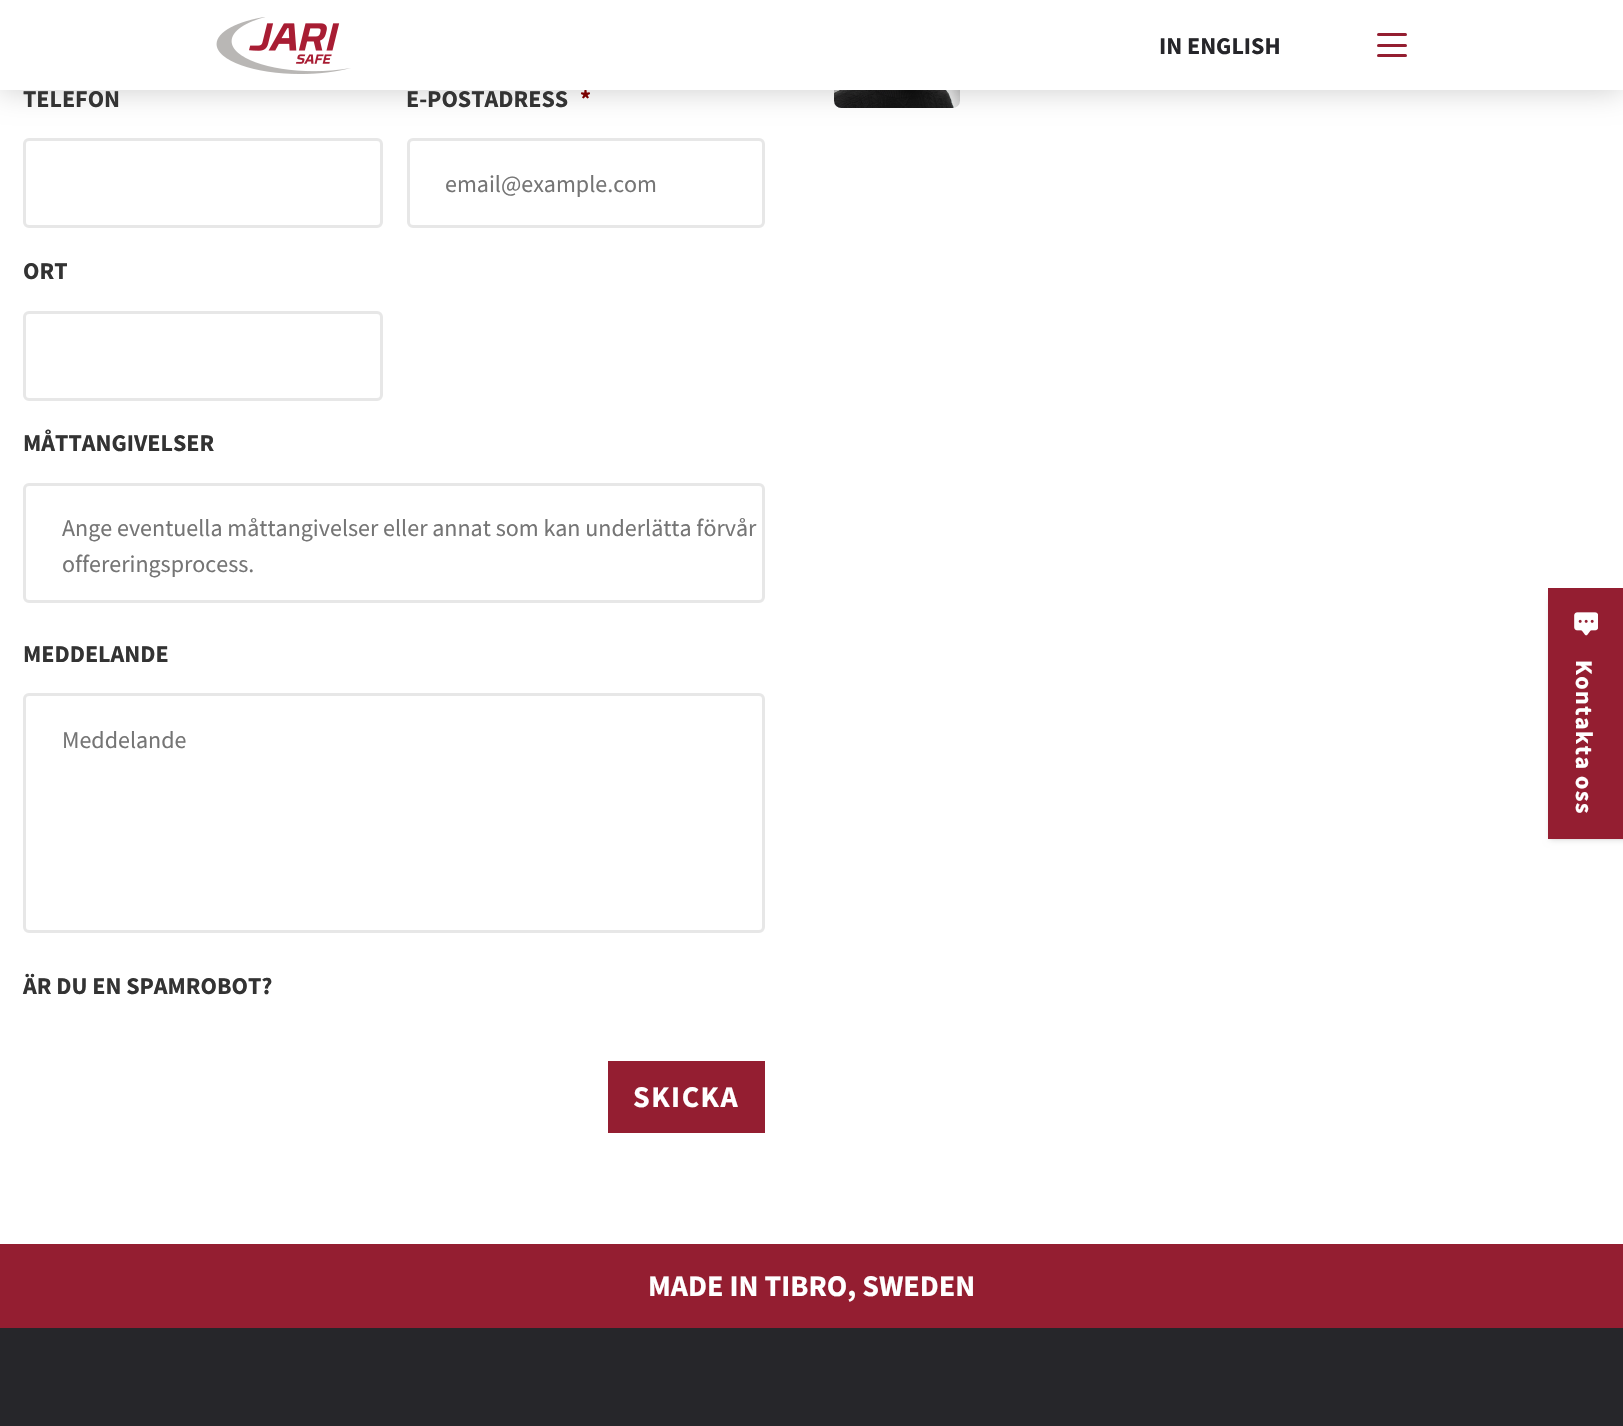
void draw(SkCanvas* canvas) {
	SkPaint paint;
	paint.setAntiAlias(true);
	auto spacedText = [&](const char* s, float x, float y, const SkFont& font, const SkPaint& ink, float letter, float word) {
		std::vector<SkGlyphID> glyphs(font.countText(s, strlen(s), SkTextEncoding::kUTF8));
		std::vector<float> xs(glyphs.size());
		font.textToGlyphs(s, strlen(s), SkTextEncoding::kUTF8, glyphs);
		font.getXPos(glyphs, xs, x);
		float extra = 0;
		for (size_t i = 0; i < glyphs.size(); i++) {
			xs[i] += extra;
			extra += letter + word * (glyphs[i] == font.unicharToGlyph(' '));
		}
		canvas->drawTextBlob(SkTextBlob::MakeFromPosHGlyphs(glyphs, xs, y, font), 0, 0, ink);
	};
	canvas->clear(0xffffffff);
	canvas->drawImageRect(SkImages::DeferredFromEncodedData(SkData::MakeFromFileName("img2.png")), SkRect::MakeXYWH(834, 90, 126, 18), SkSamplingOptions());
	paint.setColor(0x33000000);
	paint.setMaskFilter(SkMaskFilter::MakeBlur(kNormal_SkBlurStyle, 15));
	canvas->drawRect(SkRect::MakeXYWH(0, 0, 1623, 90), paint);
	paint.setMaskFilter(nullptr);
	SkFont f1(fontMgr->matchFamilyStyle("Source Sans Pro", SkFontStyle::Bold()), 24);
	f1.setSubpixel(true);
	paint.setColor(0xff790000);
	canvas->drawString("*", 580, 107, f1, paint);
	paint.setColor(0xffffffff);
	canvas->drawRect(SkRect::MakeXYWH(0, 0, 1623, 90), paint);
	canvas->drawImageRect(SkImages::DeferredFromEncodedData(SkData::MakeFromFileName("img1.png")), SkRect::MakeXYWH(216, 17, 135, 57), SkSamplingOptions());
	paint.setColor(0xff26262a);
	canvas->drawString("IN ENGLISH", 1159, 54, f1, paint);
	paint.setColor(0xff941e31);
	canvas->drawRoundRect(SkRect::MakeXYWH(1377, 33, 30, 3), 1.5, 1.5, paint);
	canvas->drawRoundRect(SkRect::MakeXYWH(1377, 44, 30, 3), 1.5, 1.5, paint);
	canvas->drawRoundRect(SkRect::MakeXYWH(1377, 54, 30, 3), 1.5, 1.5, paint);
	paint.setColor(0xff333333);
	canvas->drawString("TELEFON", 23, 107, f1, paint);
	paint.setStroke(true);
	paint.setStrokeWidth(3);
	paint.setColor(0xffe7e7e7);
	canvas->drawRoundRect(SkRect::MakeXYWH(24.5, 139.5, 357, 87), 4.5, 4.5, paint);
	paint.setStroke(false);
	paint.setColor(0xff333333);
	canvas->drawString("E-POSTADRESS", 406, 107, f1, paint);
	paint.setStroke(true);
	paint.setColor(0xffe7e7e7);
	canvas->drawRoundRect(SkRect::MakeXYWH(408.5, 139.5, 355, 87), 4.5, 4.5, paint);
	SkFont f2(fontMgr->matchFamilyStyle("Source Sans Pro", SkFontStyle::Normal()), 24);
	f2.setSubpixel(true);
	paint.setStroke(false);
	paint.setColor(0xff757575);
	canvas->drawString("email@example.com", 445, 192, f2, paint);
	paint.setColor(0xff333333);
	canvas->drawString("ORT", 23, 279, f1, paint);
	paint.setStroke(true);
	paint.setColor(0xffe7e7e7);
	canvas->drawRoundRect(SkRect::MakeXYWH(24.5, 312.5, 357, 87), 4.5, 4.5, paint);
	paint.setStroke(false);
	paint.setColor(0xff333333);
	canvas->drawString("MÅTTANGIVELSER", 23, 451, f1, paint);
	paint.setStroke(true);
	paint.setColor(0xffe7e7e7);
	canvas->drawRoundRect(SkRect::MakeXYWH(24.5, 484.5, 739, 117), 4.5, 4.5, paint);
	paint.setStroke(false);
	paint.setColor(0xff757575);
	canvas->drawString("Ange eventuella måttangivelser eller annat som kan underlätta förvår", 62, 536, f2, paint);
	canvas->drawString("offereringsprocess.", 62, 572, f2, paint);
	paint.setColor(0xff333333);
	canvas->drawString("MEDDELANDE", 23, 662, f1, paint);
	paint.setStroke(true);
	paint.setColor(0xffe7e7e7);
	canvas->drawRoundRect(SkRect::MakeXYWH(24.5, 694.5, 739, 237), 4.5, 4.5, paint);
	paint.setStroke(false);
	paint.setColor(0xff757575);
	canvas->drawString("Meddelande", 62, 748, f2, paint);
	paint.setColor(0xff333333);
	canvas->drawString("ÄR DU EN SPAMROBOT?", 23, 994, f1, paint);
	paint.setColor(0xff941e31);
	canvas->drawRect(SkRect::MakeXYWH(608, 1061, 157, 72), paint);
	SkFont f3(fontMgr->matchFamilyStyle("Source Sans Pro", SkFontStyle::Bold()), 30);
	f3.setSubpixel(true);
	paint.setColor(0xffffffff);
	spacedText("SKICKA", 633, 1107, f3, paint, 1.5, 0);
	paint.setColor(0x1a000000);
	paint.setMaskFilter(SkMaskFilter::MakeBlur(kNormal_SkBlurStyle, 3.5));
	canvas->drawRect(SkRect::MakeXYWH(1550, 599, 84, 241), paint);
	paint.setMaskFilter(nullptr);
	paint.setColor(0x1c000000);
	paint.setMaskFilter(SkMaskFilter::MakeBlur(kNormal_SkBlurStyle, 1.5));
	canvas->drawRect(SkRect::MakeXYWH(1550, 594, 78, 245), paint);
	paint.setMaskFilter(nullptr);
	paint.setColor(0xff941e31);
	canvas->drawRect(SkRect::MakeXYWH(1548, 588, 75, 251), paint);
	canvas->drawImageRect(SkImages::DeferredFromEncodedData(SkData::MakeFromFileName("img3.png")), SkRect::MakeXYWH(1574, 612, 24, 24), SkSamplingOptions());
	paint.setColor(0xffffffff);
	canvas->save();
	canvas->rotate(90, 1576, 660);
	spacedText("Kontakta oss", 1576, 660, f1, paint, 1.5, -1);
	canvas->restore();
	paint.setColor(0xff941e31);
	canvas->drawRect(SkRect::MakeXYWH(0, 1244, 1623, 84), paint);
	paint.setColor(0xffffffff);
	canvas->drawString("MADE IN TIBRO, SWEDEN", 648, 1296, f3, paint);
	paint.setColor(0xff26262a);
	canvas->drawRect(SkRect::MakeXYWH(0, 1328, 1623, 98), paint);
}
